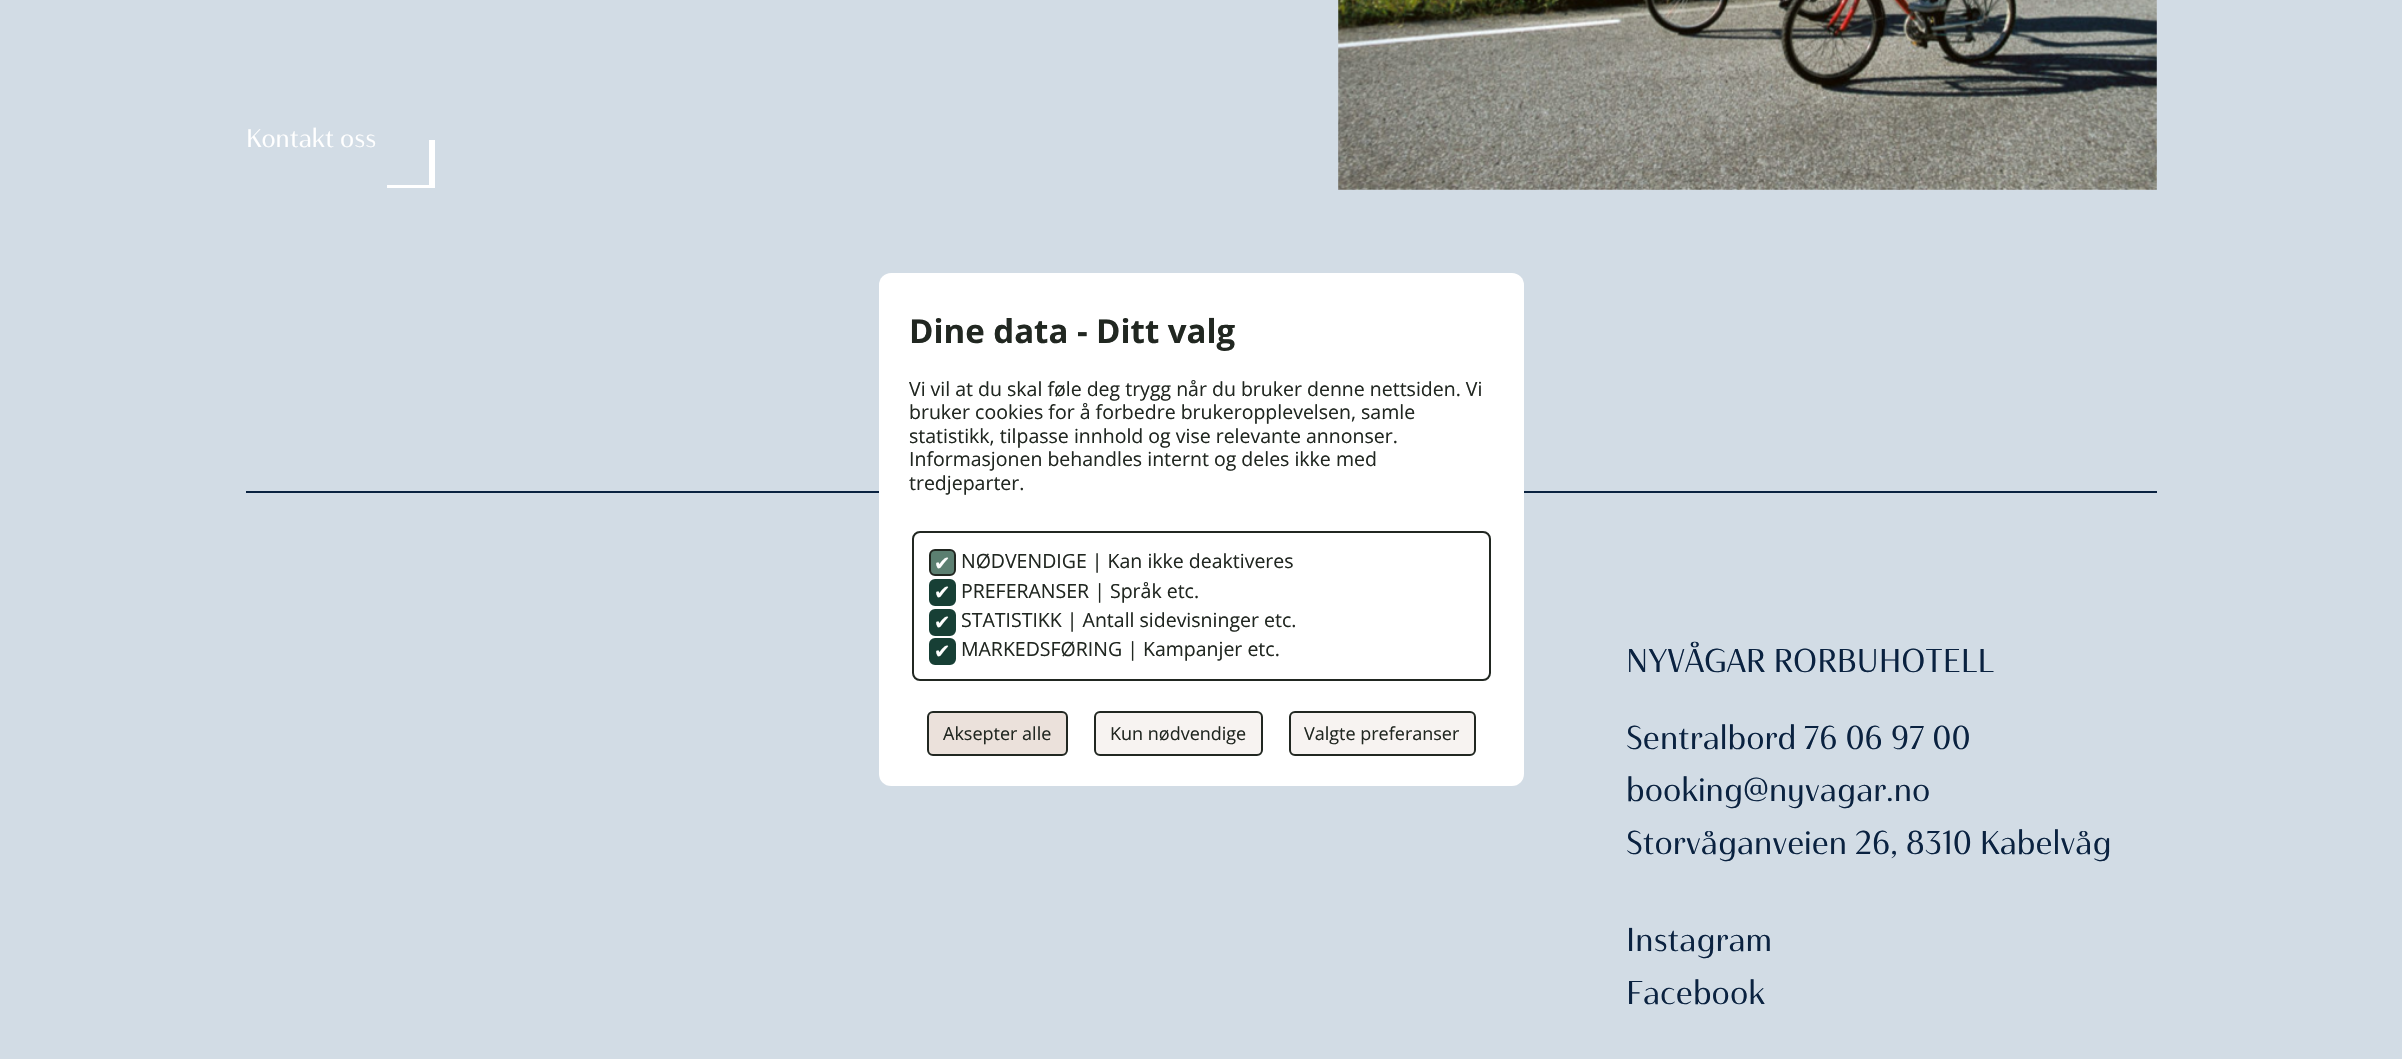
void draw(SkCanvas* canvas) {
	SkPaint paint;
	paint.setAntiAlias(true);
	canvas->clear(0xffd2dce5);
	SkFont f1(fontMgr->matchFamilyStyle("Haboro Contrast", SkFontStyle(500, SkFontStyle::kNormal_Width, SkFontStyle::kUpright_Slant)), 25.5);
	f1.setSubpixel(true);
	paint.setColor(0xffffffff);
	canvas->drawString("Kontakt oss", 246, 147, f1, paint);
	canvas->drawRect(SkRect::MakeXYWH(429, 140, 6, 48), paint);
	canvas->drawRect(SkRect::MakeXYWH(387, 185, 48, 3), paint);
	canvas->drawImageRect(SkImages::DeferredFromEncodedData(SkData::MakeFromFileName("img1.png")), SkRect::MakeXYWH(1338, 0, 819, 190), SkSamplingOptions());
	paint.setColor(0xff0a2240);
	canvas->drawRect(SkRect::MakeXYWH(246, 491, 1911, 2), paint);
	paint.setColor(0xffffffff);
	canvas->drawRoundRect(SkRect::MakeXYWH(879, 273, 645, 513), 12, 12, paint);
	SkFont f2(fontMgr->matchFamilyStyle("Open Sans", SkFontStyle::Bold()), 33);
	f2.setSubpixel(true);
	paint.setColor(0xff212721);
	canvas->drawString("Dine data - Ditt valg", 909, 343, f2, paint);
	SkFont f3(fontMgr->matchFamilyStyle("Open Sans", SkFontStyle::Normal()), 19.5);
	f3.setSubpixel(true);
	canvas->drawString("Vi vil at du skal føle deg trygg når du bruker denne nettsiden. Vi", 909, 396, f3, paint);
	canvas->drawString("bruker cookies for å forbedre brukeropplevelsen, samle", 909, 419, f3, paint);
	canvas->drawString("statistikk, tilpasse innhold og vise relevante annonser.", 909, 443, f3, paint);
	canvas->drawString("Informasjonen behandles internt og deles ikke med", 909, 466, f3, paint);
	canvas->drawString("tredjeparter.", 909, 490, f3, paint);
	paint.setStroke(true);
	paint.setStrokeWidth(2);
	canvas->drawRoundRect(SkRect::MakeXYWH(913, 532, 577, 148), 7, 7, paint);
	paint.setStroke(false);
	paint.setColor(0xff5c7f71);
	canvas->drawRoundRect(SkRect::MakeXYWH(930, 550, 25, 25), 5, 5, paint);
	paint.setStroke(true);
	paint.setColor(0xff212721);
	canvas->drawRoundRect(SkRect::MakeXYWH(930, 550, 25, 25), 5, 5, paint);
	SkFont f4(fontMgr->matchFamilyStyle("DejaVu Sans", SkFontStyle::Normal()), 19.5);
	f4.setSubpixel(true);
	paint.setStroke(false);
	paint.setColor(0xffffffff);
	canvas->drawString("✔", 934, 570, f4, paint);
	paint.setColor(0xff212721);
	canvas->drawString("NØDVENDIGE | Kan ikke deaktiveres", 961, 568, f3, paint);
	paint.setColor(0xff173f35);
	canvas->drawRoundRect(SkRect::MakeXYWH(930, 580, 25, 25), 5, 5, paint);
	paint.setStroke(true);
	canvas->drawRoundRect(SkRect::MakeXYWH(930, 580, 25, 25), 5, 5, paint);
	paint.setStroke(false);
	paint.setColor(0xffffffff);
	canvas->drawString("✔", 934, 599, f4, paint);
	paint.setColor(0xff212721);
	canvas->drawString("PREFERANSER | Språk etc.", 961, 598, f3, paint);
	paint.setColor(0xff173f35);
	canvas->drawRoundRect(SkRect::MakeXYWH(930, 610, 25, 25), 5, 5, paint);
	paint.setStroke(true);
	canvas->drawRoundRect(SkRect::MakeXYWH(930, 610, 25, 25), 5, 5, paint);
	paint.setStroke(false);
	paint.setColor(0xffffffff);
	canvas->drawString("✔", 934, 629, f4, paint);
	paint.setColor(0xff212721);
	canvas->drawString("STATISTIKK | Antall sidevisninger etc.", 961, 627, f3, paint);
	paint.setColor(0xff173f35);
	canvas->drawRoundRect(SkRect::MakeXYWH(930, 639, 25, 25), 5, 5, paint);
	paint.setStroke(true);
	canvas->drawRoundRect(SkRect::MakeXYWH(930, 639, 25, 25), 5, 5, paint);
	paint.setStroke(false);
	paint.setColor(0xffffffff);
	canvas->drawString("✔", 934, 658, f4, paint);
	paint.setColor(0xff212721);
	canvas->drawString("MARKEDSFØRING | Kampanjer etc.", 961, 656, f3, paint);
	paint.setColor(0xffebe1db);
	canvas->drawRoundRect(SkRect::MakeXYWH(928, 712, 139, 43), 5, 5, paint);
	paint.setStroke(true);
	paint.setColor(0xff212721);
	canvas->drawRoundRect(SkRect::MakeXYWH(928, 712, 139, 43), 5, 5, paint);
	SkFont f5(fontMgr->matchFamilyStyle("Open Sans", SkFontStyle::Normal()), 18);
	f5.setSubpixel(true);
	paint.setStroke(false);
	canvas->drawString("Aksepter alle", 943, 740, f5, paint);
	paint.setColor(0xfff7f3f1);
	canvas->drawRoundRect(SkRect::MakeXYWH(1095, 712, 167, 43), 5, 5, paint);
	paint.setStroke(true);
	paint.setColor(0xff212721);
	canvas->drawRoundRect(SkRect::MakeXYWH(1095, 712, 167, 43), 5, 5, paint);
	paint.setStroke(false);
	canvas->drawString("Kun nødvendige", 1110, 740, f5, paint);
	paint.setColor(0xfff7f3f1);
	canvas->drawRoundRect(SkRect::MakeXYWH(1290, 712, 185, 43), 5, 5, paint);
	paint.setStroke(true);
	paint.setColor(0xff212721);
	canvas->drawRoundRect(SkRect::MakeXYWH(1290, 712, 185, 43), 5, 5, paint);
	paint.setStroke(false);
	canvas->drawString("Valgte preferanser", 1304, 740, f5, paint);
	SkFont f6(fontMgr->matchFamilyStyle("Haboro Contrast", SkFontStyle(500, SkFontStyle::kNormal_Width, SkFontStyle::kUpright_Slant)), 33);
	f6.setSubpixel(true);
	paint.setColor(0xff0a2240);
	canvas->drawString("NYVÅGAR RORBUHOTELL", 1626, 672, f6, paint);
	canvas->drawString("Sentralbord 76 06 97 00", 1626, 749, f6, paint);
	canvas->drawString("booking@nyvagar.no", 1626, 801, f6, paint);
	canvas->drawString("Storvåganveien 26, 8310 Kabelvåg", 1626, 854, f6, paint);
	canvas->drawString("Instagram", 1626, 951, f6, paint);
	canvas->drawString("Facebook", 1626, 1004, f6, paint);
}
